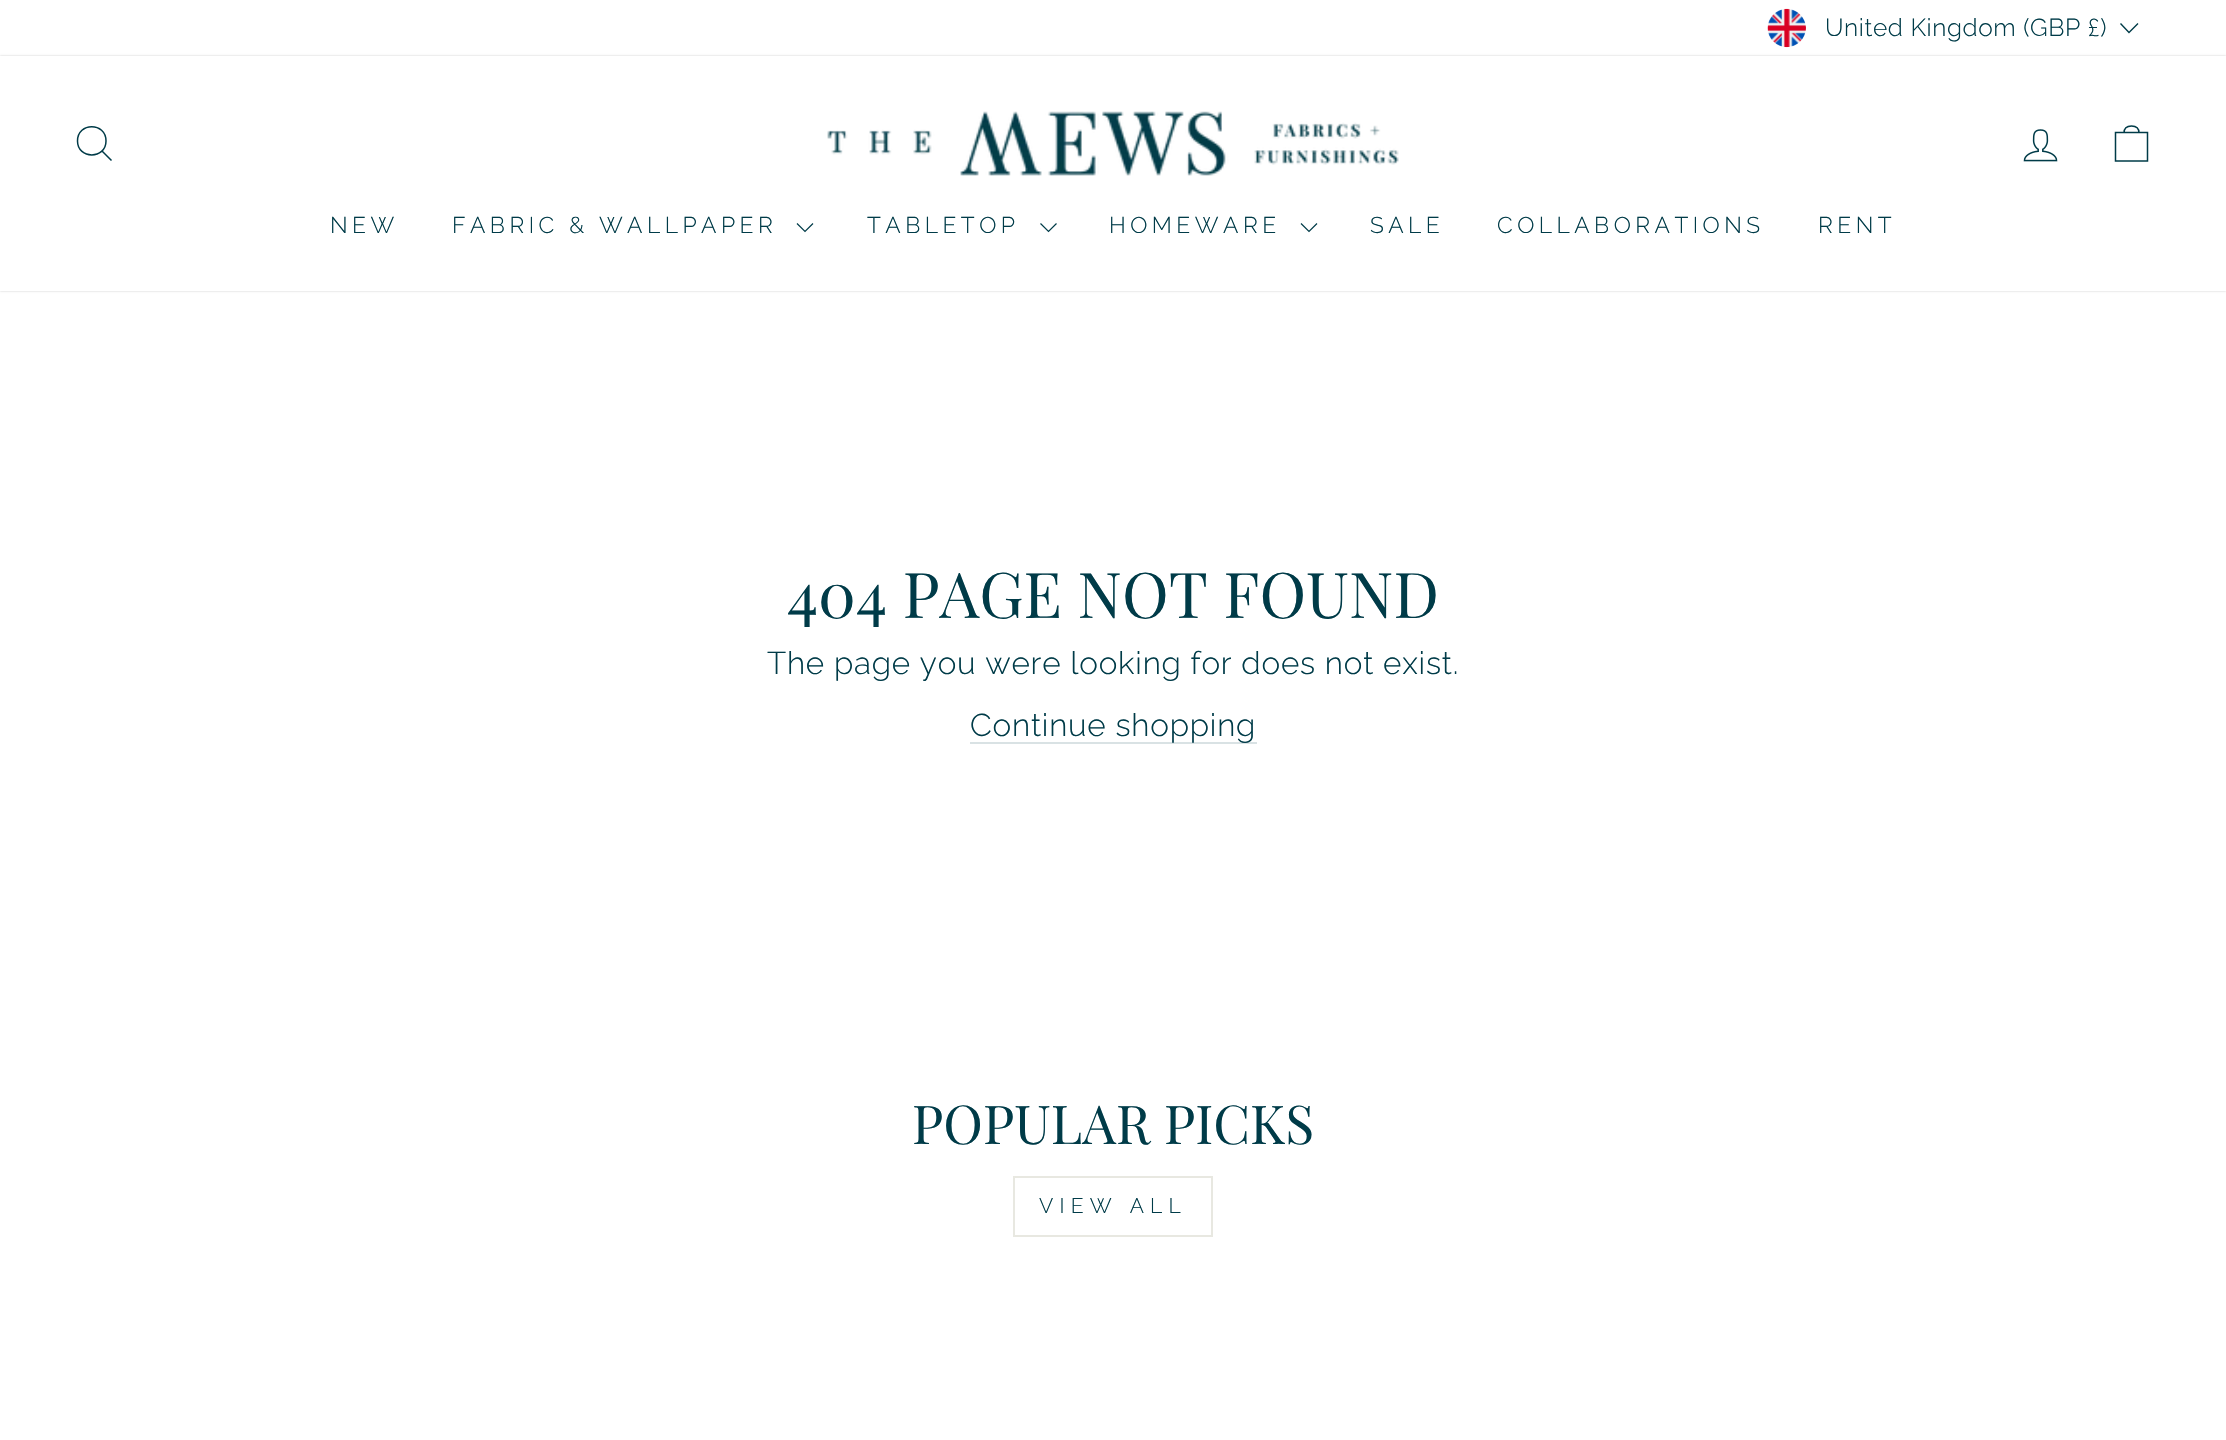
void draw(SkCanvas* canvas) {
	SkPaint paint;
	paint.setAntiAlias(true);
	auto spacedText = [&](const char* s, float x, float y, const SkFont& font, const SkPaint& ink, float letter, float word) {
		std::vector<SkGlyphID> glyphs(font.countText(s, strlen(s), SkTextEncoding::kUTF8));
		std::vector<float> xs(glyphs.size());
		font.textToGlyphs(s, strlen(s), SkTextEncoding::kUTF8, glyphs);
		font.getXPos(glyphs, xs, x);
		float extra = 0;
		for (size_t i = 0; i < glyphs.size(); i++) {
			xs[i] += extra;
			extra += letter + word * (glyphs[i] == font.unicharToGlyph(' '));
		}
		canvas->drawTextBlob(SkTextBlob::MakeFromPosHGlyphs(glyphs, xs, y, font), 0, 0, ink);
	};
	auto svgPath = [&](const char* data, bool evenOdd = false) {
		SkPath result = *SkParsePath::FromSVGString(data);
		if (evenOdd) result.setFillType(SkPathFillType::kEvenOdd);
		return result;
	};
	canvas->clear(0xffffffff);
	canvas->drawImageRect(SkImages::DeferredFromEncodedData(SkData::MakeFromFileName("img1.png")), SkRect::MakeXYWH(1767, 8, 39, 40), SkSamplingOptions());
	SkFont f1(fontMgr->matchFamilyStyle("Raleway", SkFontStyle(300, SkFontStyle::kNormal_Width, SkFontStyle::kUpright_Slant)), 24.5);
	f1.setSubpixel(true);
	paint.setColor(0xff003b48);
	spacedText("United Kingdom (GBP £)", 1825, 36, f1, paint, 0.6, 0);
	paint.setStroke(true);
	paint.setStrokeWidth(1.4);
	canvas->drawPath(svgPath("M2120.5 23.5L2129 32.5L2138 23.5"), paint);
	paint.setStroke(false);
	paint.setColor(0x33000000);
	paint.setMaskFilter(SkMaskFilter::MakeBlur(kNormal_SkBlurStyle, 1));
	canvas->drawRect(SkRect::MakeXYWH(0, 56, 2226, 235), paint);
	paint.setMaskFilter(nullptr);
	paint.setColor(0xffffffff);
	canvas->drawRect(SkRect::MakeXYWH(0, 56, 2226, 235), paint);
	paint.setStroke(true);
	paint.setStrokeWidth(1.5);
	paint.setColor(0xff003b48);
	canvas->drawPath(svgPath("M106 141C106 159.5 77.5 159.5 77.5 141C77.5 122 106 122 106 141ZM111.5 160.5L102 151"), paint);
	canvas->drawImageRect(SkImages::DeferredFromEncodedData(SkData::MakeFromFileName("img2.png")), SkRect::MakeXYWH(827, 111, 572, 65), SkSamplingOptions());
	canvas->drawImageRect(SkImages::DeferredFromEncodedData(SkData::MakeFromFileName("img3.png")), SkRect::MakeXYWH(2023, 129, 35, 33), SkSamplingOptions());
	canvas->drawPath(svgPath("M2115.5 132.5H2147.5V161H2115.5ZM2124 133C2124 127.5 2127.5 126 2131.5 126C2135.5 126 2139 127.5 2139 133"), paint);
	SkFont f2(fontMgr->matchFamilyStyle("Raleway", SkFontStyle(300, SkFontStyle::kNormal_Width, SkFontStyle::kUpright_Slant)), 22.75);
	f2.setSubpixel(true);
	paint.setStroke(false);
	spacedText("NEW", 330, 233, f2, paint, 4.5, 0);
	spacedText("FABRIC & WALLPAPER", 452, 233, f2, paint, 4.5, 0);
	paint.setStroke(true);
	paint.setStrokeWidth(1.2);
	canvas->drawPath(svgPath("M797 223.5L805 231.5L813 223.5"), paint);
	paint.setStroke(false);
	spacedText("TABLETOP", 867, 233, f2, paint, 4.5, 0);
	paint.setStroke(true);
	canvas->drawPath(svgPath("M1040.5 223.5L1048.5 231.5L1056.5 223.5"), paint);
	paint.setStroke(false);
	spacedText("HOMEWARE", 1109, 233, f2, paint, 4.5, 0);
	paint.setStroke(true);
	canvas->drawPath(svgPath("M1301 223.5L1309 231.5L1317 223.5"), paint);
	paint.setStroke(false);
	spacedText("SALE", 1370, 233, f2, paint, 4.5, 0);
	spacedText("COLLABORATIONS", 1497, 233, f2, paint, 4.5, 0);
	spacedText("RENT", 1818, 233, f2, paint, 4.5, 0);
	SkFont f3(fontMgr->matchFamilyStyle("Playfair Display", SkFontStyle::Normal()), 63);
	f3.setSubpixel(true);
	canvas->drawString("404 PAGE NOT FOUND", 787, 618, f3, paint);
	SkFont f4(fontMgr->matchFamilyStyle("Raleway", SkFontStyle(300, SkFontStyle::kNormal_Width, SkFontStyle::kUpright_Slant)), 31.5);
	f4.setSubpixel(true);
	spacedText("The page you were looking for does not exist.", 767, 674, f4, paint, 0.8, 0);
	paint.setColor(0xffd9e2e4);
	canvas->drawRect(SkRect::MakeXYWH(970, 742, 287, 2), paint);
	paint.setColor(0xff003b48);
	spacedText("Continue shopping", 970, 736, f4, paint, 0.8, 0);
	SkFont f5(fontMgr->matchFamilyStyle("Playfair Display", SkFontStyle::Normal()), 53.5);
	f5.setSubpixel(true);
	canvas->drawString("POPULAR PICKS", 912, 1144, f5, paint);
	paint.setStroke(true);
	paint.setStrokeWidth(2);
	paint.setColor(0xffe8e8e1);
	canvas->drawRect(SkRect::MakeXYWH(1014, 1177, 198, 59), paint);
	SkFont f6(fontMgr->matchFamilyStyle("Raleway", SkFontStyle(300, SkFontStyle::kNormal_Width, SkFontStyle::kUpright_Slant)), 21);
	f6.setSubpixel(true);
	paint.setStroke(false);
	paint.setColor(0xff003b48);
	spacedText("VIEW ALL", 1039, 1213, f6, paint, 6.25, 0);
}
